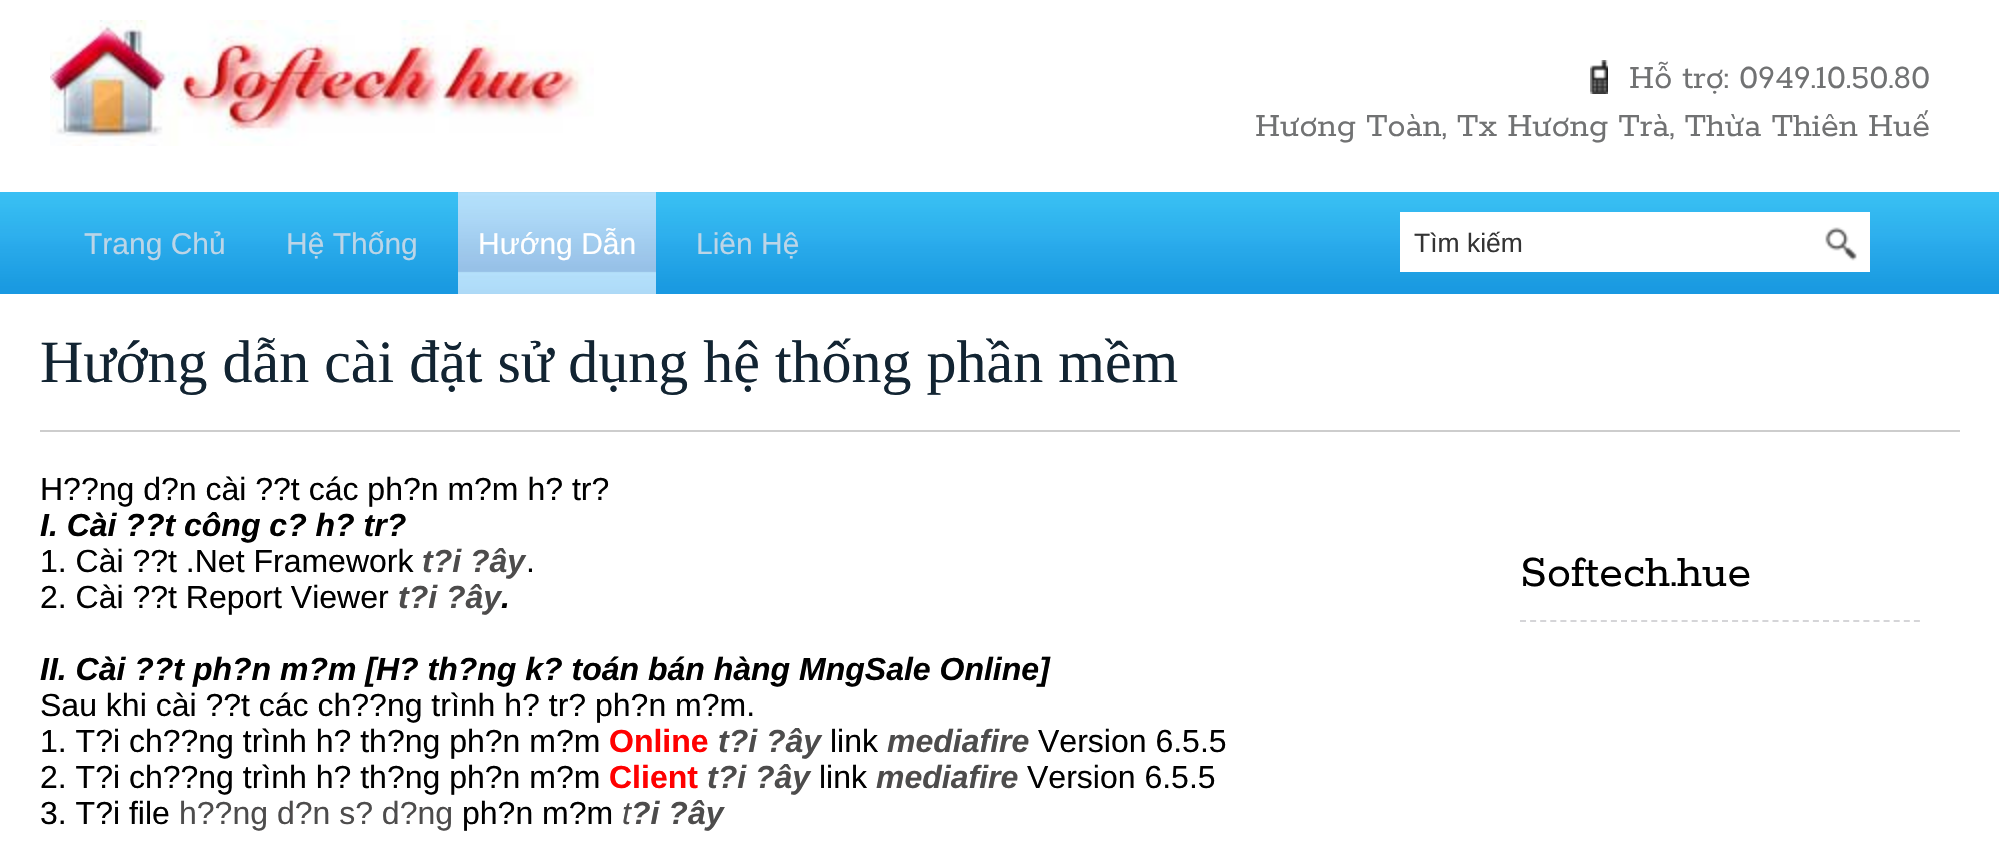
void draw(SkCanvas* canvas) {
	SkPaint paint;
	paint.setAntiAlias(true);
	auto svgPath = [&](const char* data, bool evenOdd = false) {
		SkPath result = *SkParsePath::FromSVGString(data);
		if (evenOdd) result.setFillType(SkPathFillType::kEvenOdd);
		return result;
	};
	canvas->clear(0xffffffff);
	canvas->drawImageRect(SkImages::DeferredFromEncodedData(SkData::MakeFromFileName("img1.png")), SkRect::MakeXYWH(50, 20, 544, 126), SkSamplingOptions());
	canvas->drawImageRect(SkImages::DeferredFromEncodedData(SkData::MakeFromFileName("img2.png")), SkRect::MakeXYWH(1590, 60, 18, 34), SkSamplingOptions());
	SkFont f1(fontMgr->matchFamilyStyle("Rokkitt", SkFontStyle::Normal()), 36);
	f1.setSubpixel(true);
	paint.setColor(0xff717273);
	canvas->drawString("Hỗ trợ: 0949.10.50.80", 1629, 88, f1, paint);
	canvas->drawString("Hương Toàn, Tx Hương Trà, Thừa Thiên Huế", 1255, 136, f1, paint);
	canvas->drawImageRect(SkImages::DeferredFromEncodedData(SkData::MakeFromFileName("img3.png")), SkRect::MakeXYWH(0, 192, 1999, 102), SkSamplingOptions());
	SkFont f2(fontMgr->matchFamilyStyle("Liberation Sans", SkFontStyle::Normal()), 30);
	f2.setSubpixel(true);
	paint.setColor(0xffbcd5e7);
	canvas->drawString("Trang Chủ", 84, 254, f2, paint);
	canvas->drawString("Hệ Thống", 286, 254, f2, paint);
	canvas->drawImageRect(SkImages::DeferredFromEncodedData(SkData::MakeFromFileName("img4.png")), SkRect::MakeXYWH(458, 192, 198, 102), SkSamplingOptions());
	paint.setColor(0xffffffff);
	canvas->drawString("Hướng Dẫn", 478, 254, f2, paint);
	paint.setColor(0xffbcd5e7);
	canvas->drawString("Liên Hệ", 696, 254, f2, paint);
	paint.setColor(0xffffffff);
	canvas->drawRect(SkRect::MakeXYWH(1400, 212, 470, 60), paint);
	SkFont f3(fontMgr->matchFamilyStyle("Liberation Sans", SkFontStyle::Normal()), 26.5);
	f3.setSubpixel(true);
	paint.setColor(0xff343434);
	canvas->drawString("Tìm kiếm", 1414, 252, f3, paint);
	canvas->drawImageRect(SkImages::DeferredFromEncodedData(SkData::MakeFromFileName("img5.png")), SkRect::MakeXYWH(1825, 227, 32, 34), SkSamplingOptions());
	paint.setColor(0xffcdcdcd);
	canvas->drawRect(SkRect::MakeXYWH(40, 430, 1920, 2), paint);
	SkFont f4(fontMgr->matchFamilyStyle("Liberation Serif", SkFontStyle::Normal()), 60);
	f4.setSubpixel(true);
	paint.setColor(0xff122432);
	canvas->drawString("Hướng dẫn cài đặt sử dụng hệ thống phần mềm", 40, 382, f4, paint);
	SkFont f5(fontMgr->matchFamilyStyle("Liberation Sans", SkFontStyle::Normal()), 32);
	f5.setSubpixel(true);
	paint.setColor(0xff000000);
	canvas->drawString("H?\077ng d?n cài ?\077t các ph?n m?m h? tr?", 40, 500, f5, paint);
	SkFont f6(fontMgr->matchFamilyStyle("Liberation Sans", SkFontStyle::BoldItalic()), 32);
	f6.setSubpixel(true);
	canvas->drawString("I. Cài ?\077t công c? h? tr?", 40, 536, f6, paint);
	canvas->drawString("1. Cài ?\077t .Net Framework", 40, 572, f5, paint);
	paint.setColor(0xff4d4c4c);
	canvas->drawString("t?i ?ây", 422, 572, f6, paint);
	paint.setColor(0xff000000);
	canvas->drawString(".", 526, 572, f5, paint);
	canvas->drawString("2. Cài ?\077t Report Viewer", 40, 608, f5, paint);
	paint.setColor(0xff4d4c4c);
	canvas->drawString("t?i ?ây", 398, 608, f6, paint);
	paint.setColor(0xff000000);
	canvas->drawString(".", 501, 608, f6, paint);
	canvas->drawString("II. Cài ?\077t ph?n m?m [H? th?ng k? toán bán hàng MngSale Online]", 40, 680, f6, paint);
	canvas->drawString("Sau khi cài ?\077t các ch?\077ng trình h? tr? ph?n m?m.", 40, 716, f5, paint);
	canvas->drawString("1. T?i ch?\077ng trình h? th?ng ph?n m?m", 40, 752, f5, paint);
	SkFont f7(fontMgr->matchFamilyStyle("Liberation Sans", SkFontStyle::Bold()), 32);
	f7.setSubpixel(true);
	paint.setColor(0xffff0000);
	canvas->drawString("Online", 609, 752, f7, paint);
	paint.setColor(0xff4d4c4c);
	canvas->drawString("t?i ?ây", 718, 752, f6, paint);
	paint.setColor(0xff000000);
	canvas->drawString("link", 830, 752, f5, paint);
	paint.setColor(0xff4d4c4c);
	canvas->drawString("mediafire", 887, 752, f6, paint);
	paint.setColor(0xff000000);
	canvas->drawString("Version 6.5.5", 1038, 752, f5, paint);
	canvas->drawString("2. T?i ch?\077ng trình h? th?ng ph?n m?m", 40, 788, f5, paint);
	paint.setColor(0xffff0000);
	canvas->drawString("Client", 609, 788, f7, paint);
	paint.setColor(0xff4d4c4c);
	canvas->drawString("t?i ?ây", 707, 788, f6, paint);
	paint.setColor(0xff000000);
	canvas->drawString("link", 819, 788, f5, paint);
	paint.setColor(0xff4d4c4c);
	canvas->drawString("mediafire", 876, 788, f6, paint);
	paint.setColor(0xff000000);
	canvas->drawString("Version 6.5.5", 1027, 788, f5, paint);
	canvas->drawString("3. T?i file", 40, 824, f5, paint);
	paint.setColor(0xff4d4c4c);
	canvas->drawString("h?\077ng d?n s? d?ng", 179, 824, f5, paint);
	paint.setColor(0xff000000);
	canvas->drawString("ph?n m?m", 462, 824, f5, paint);
	SkFont f8(fontMgr->matchFamilyStyle("Liberation Sans", SkFontStyle::Italic()), 32);
	f8.setSubpixel(true);
	paint.setColor(0xff4d4c4c);
	canvas->drawString("t", 622, 824, f8, paint);
	canvas->drawString("?i ?ây", 631, 824, f6, paint);
	paint.setStroke(true);
	paint.setStrokeWidth(2);
	paint.setColor(0xffd5d5d8);
	paint.setPathEffect(SkDashPathEffect::Make({{6, 4.1f}}, 0));
	canvas->drawPath(svgPath("M1520 621H1920"), paint);
	paint.setPathEffect(nullptr);
	SkFont f9(fontMgr->matchFamilyStyle("Rokkitt", SkFontStyle::Normal()), 48);
	f9.setSubpixel(true);
	paint.setStroke(false);
	paint.setColor(0xff000000);
	canvas->drawString("Softech.hue", 1520, 586, f9, paint);
}
